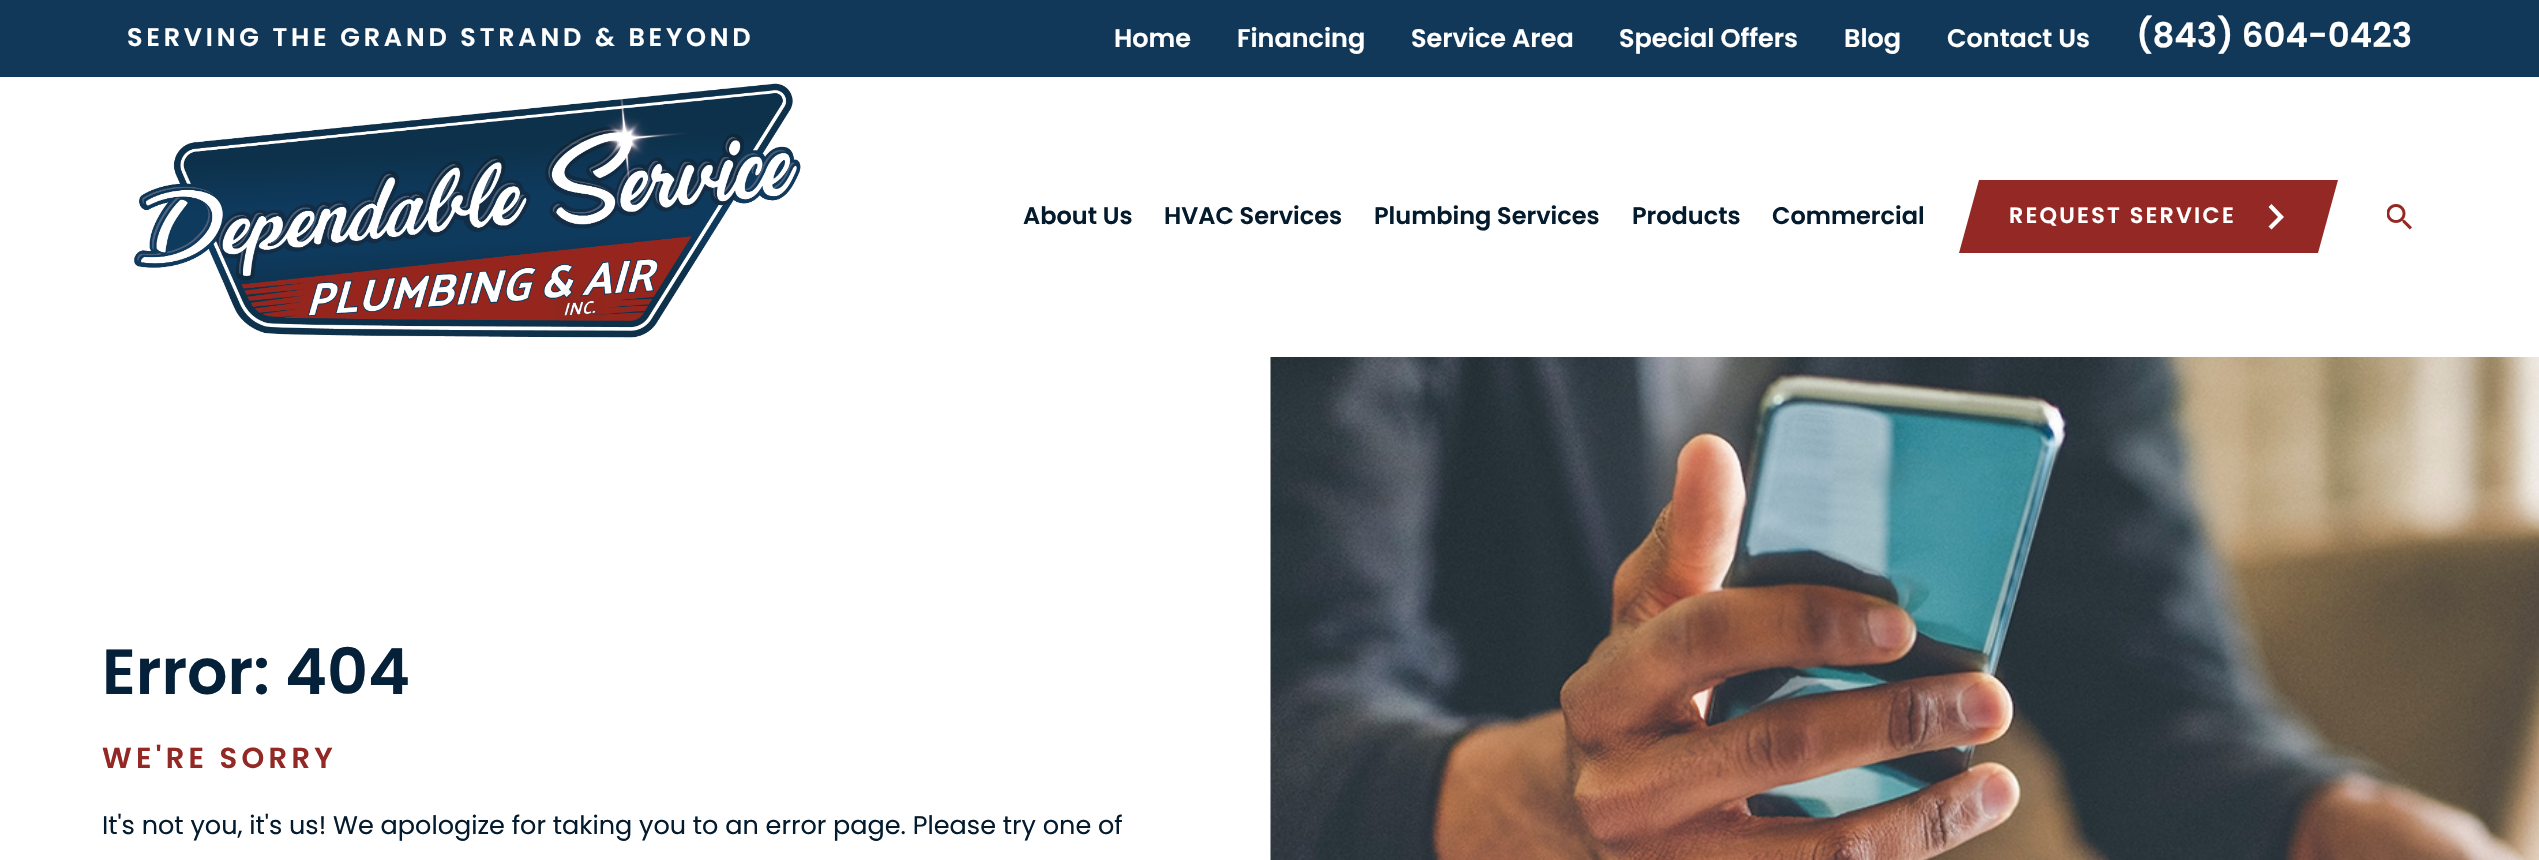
void draw(SkCanvas* canvas) {
	SkPaint paint;
	paint.setAntiAlias(true);
	auto spacedText = [&](const char* s, float x, float y, const SkFont& font, const SkPaint& ink, float letter, float word) {
		std::vector<SkGlyphID> glyphs(font.countText(s, strlen(s), SkTextEncoding::kUTF8));
		std::vector<float> xs(glyphs.size());
		font.textToGlyphs(s, strlen(s), SkTextEncoding::kUTF8, glyphs);
		font.getXPos(glyphs, xs, x);
		float extra = 0;
		for (size_t i = 0; i < glyphs.size(); i++) {
			xs[i] += extra;
			extra += letter + word * (glyphs[i] == font.unicharToGlyph(' '));
		}
		canvas->drawTextBlob(SkTextBlob::MakeFromPosHGlyphs(glyphs, xs, y, font), 0, 0, ink);
	};
	auto svgPath = [&](const char* data, bool evenOdd = false) {
		SkPath result = *SkParsePath::FromSVGString(data);
		if (evenOdd) result.setFillType(SkPathFillType::kEvenOdd);
		return result;
	};
	canvas->clear(0xffffffff);
	paint.setColor(0xff113858);
	canvas->drawRect(SkRect::MakeXYWH(0, 0, 2539, 77), paint);
	SkFont f1(fontMgr->matchFamilyStyle("Poppins", SkFontStyle(600, SkFontStyle::kNormal_Width, SkFontStyle::kUpright_Slant)), 25.5);
	f1.setSubpixel(true);
	paint.setColor(0xffffffff);
	spacedText("SERVING THE GRAND STRAND & BEYOND", 127, 46, f1, paint, 3.8, 0);
	canvas->drawString("Home", 1114, 47, f1, paint);
	canvas->drawString("Financing", 1237, 47, f1, paint);
	canvas->drawString("Service Area", 1411, 47, f1, paint);
	canvas->drawString("Special Offers", 1619, 47, f1, paint);
	canvas->drawString("Blog", 1844, 47, f1, paint);
	canvas->drawString("Contact Us", 1947, 47, f1, paint);
	SkFont f2(fontMgr->matchFamilyStyle("Poppins", SkFontStyle(600, SkFontStyle::kNormal_Width, SkFontStyle::kUpright_Slant)), 34);
	f2.setSubpixel(true);
	canvas->drawString("(843) 604-0423", 2136, 47, f2, paint);
	canvas->drawImageRect(SkImages::DeferredFromEncodedData(SkData::MakeFromFileName("img1.png")), SkRect::MakeXYWH(134, 83, 667, 255), SkSamplingOptions());
	SkFont f3(fontMgr->matchFamilyStyle("Poppins", SkFontStyle(600, SkFontStyle::kNormal_Width, SkFontStyle::kUpright_Slant)), 24);
	f3.setSubpixel(true);
	paint.setColor(0xff041b2e);
	canvas->drawString("About Us", 1023, 224, f3, paint);
	canvas->drawString("HVAC Services", 1164, 224, f3, paint);
	canvas->drawString("Plumbing Services", 1374, 224, f3, paint);
	canvas->drawString("Products", 1632, 224, f3, paint);
	canvas->drawString("Commercial", 1772, 224, f3, paint);
	paint.setColor(0xff932824);
	canvas->drawPath(svgPath("M1979 180H2338L2318 253H1959Z"), paint);
	SkFont f4(fontMgr->matchFamilyStyle("Poppins", SkFontStyle(600, SkFontStyle::kNormal_Width, SkFontStyle::kUpright_Slant)), 22.25);
	f4.setSubpixel(true);
	paint.setColor(0xffffffff);
	spacedText("REQUEST SERVICE", 2009, 223, f4, paint, 2.25, 0);
	canvas->drawPath(svgPath("M2271.5 229.5L2284 217L2271.5 204L2268.5 207L2278 217L2268.5 226.5Z"), paint);
	canvas->drawImageRect(SkImages::DeferredFromEncodedData(SkData::MakeFromFileName("img2.png")), SkRect::MakeXYWH(2387, 204, 25, 26), SkSamplingOptions());
	SkFont f5(fontMgr->matchFamilyStyle("Poppins", SkFontStyle(600, SkFontStyle::kNormal_Width, SkFontStyle::kUpright_Slant)), 63.5);
	f5.setSubpixel(true);
	paint.setColor(0xff042139);
	canvas->drawString("Error: 404", 102, 694, f5, paint);
	SkFont f6(fontMgr->matchFamilyStyle("Poppins", SkFontStyle(600, SkFontStyle::kNormal_Width, SkFontStyle::kUpright_Slant)), 29);
	f6.setSubpixel(true);
	paint.setColor(0xff932824);
	spacedText("WE'RE SORRY", 102, 768, f6, paint, 4.3, 0);
	SkFont f7(fontMgr->matchFamilyStyle("Poppins", SkFontStyle::Normal()), 25.5);
	f7.setSubpixel(true);
	paint.setColor(0xff041b2e);
	canvas->drawString("It's not you, it's us! We apologize for taking you to an error page. Please try one of", 102, 834, f7, paint);
	canvas->drawImageRect(SkImages::DeferredFromEncodedData(SkData::MakeFromFileName("img3.png")), SkRect::MakeXYWH(1270, 357, 1269, 503), SkSamplingOptions());
}
